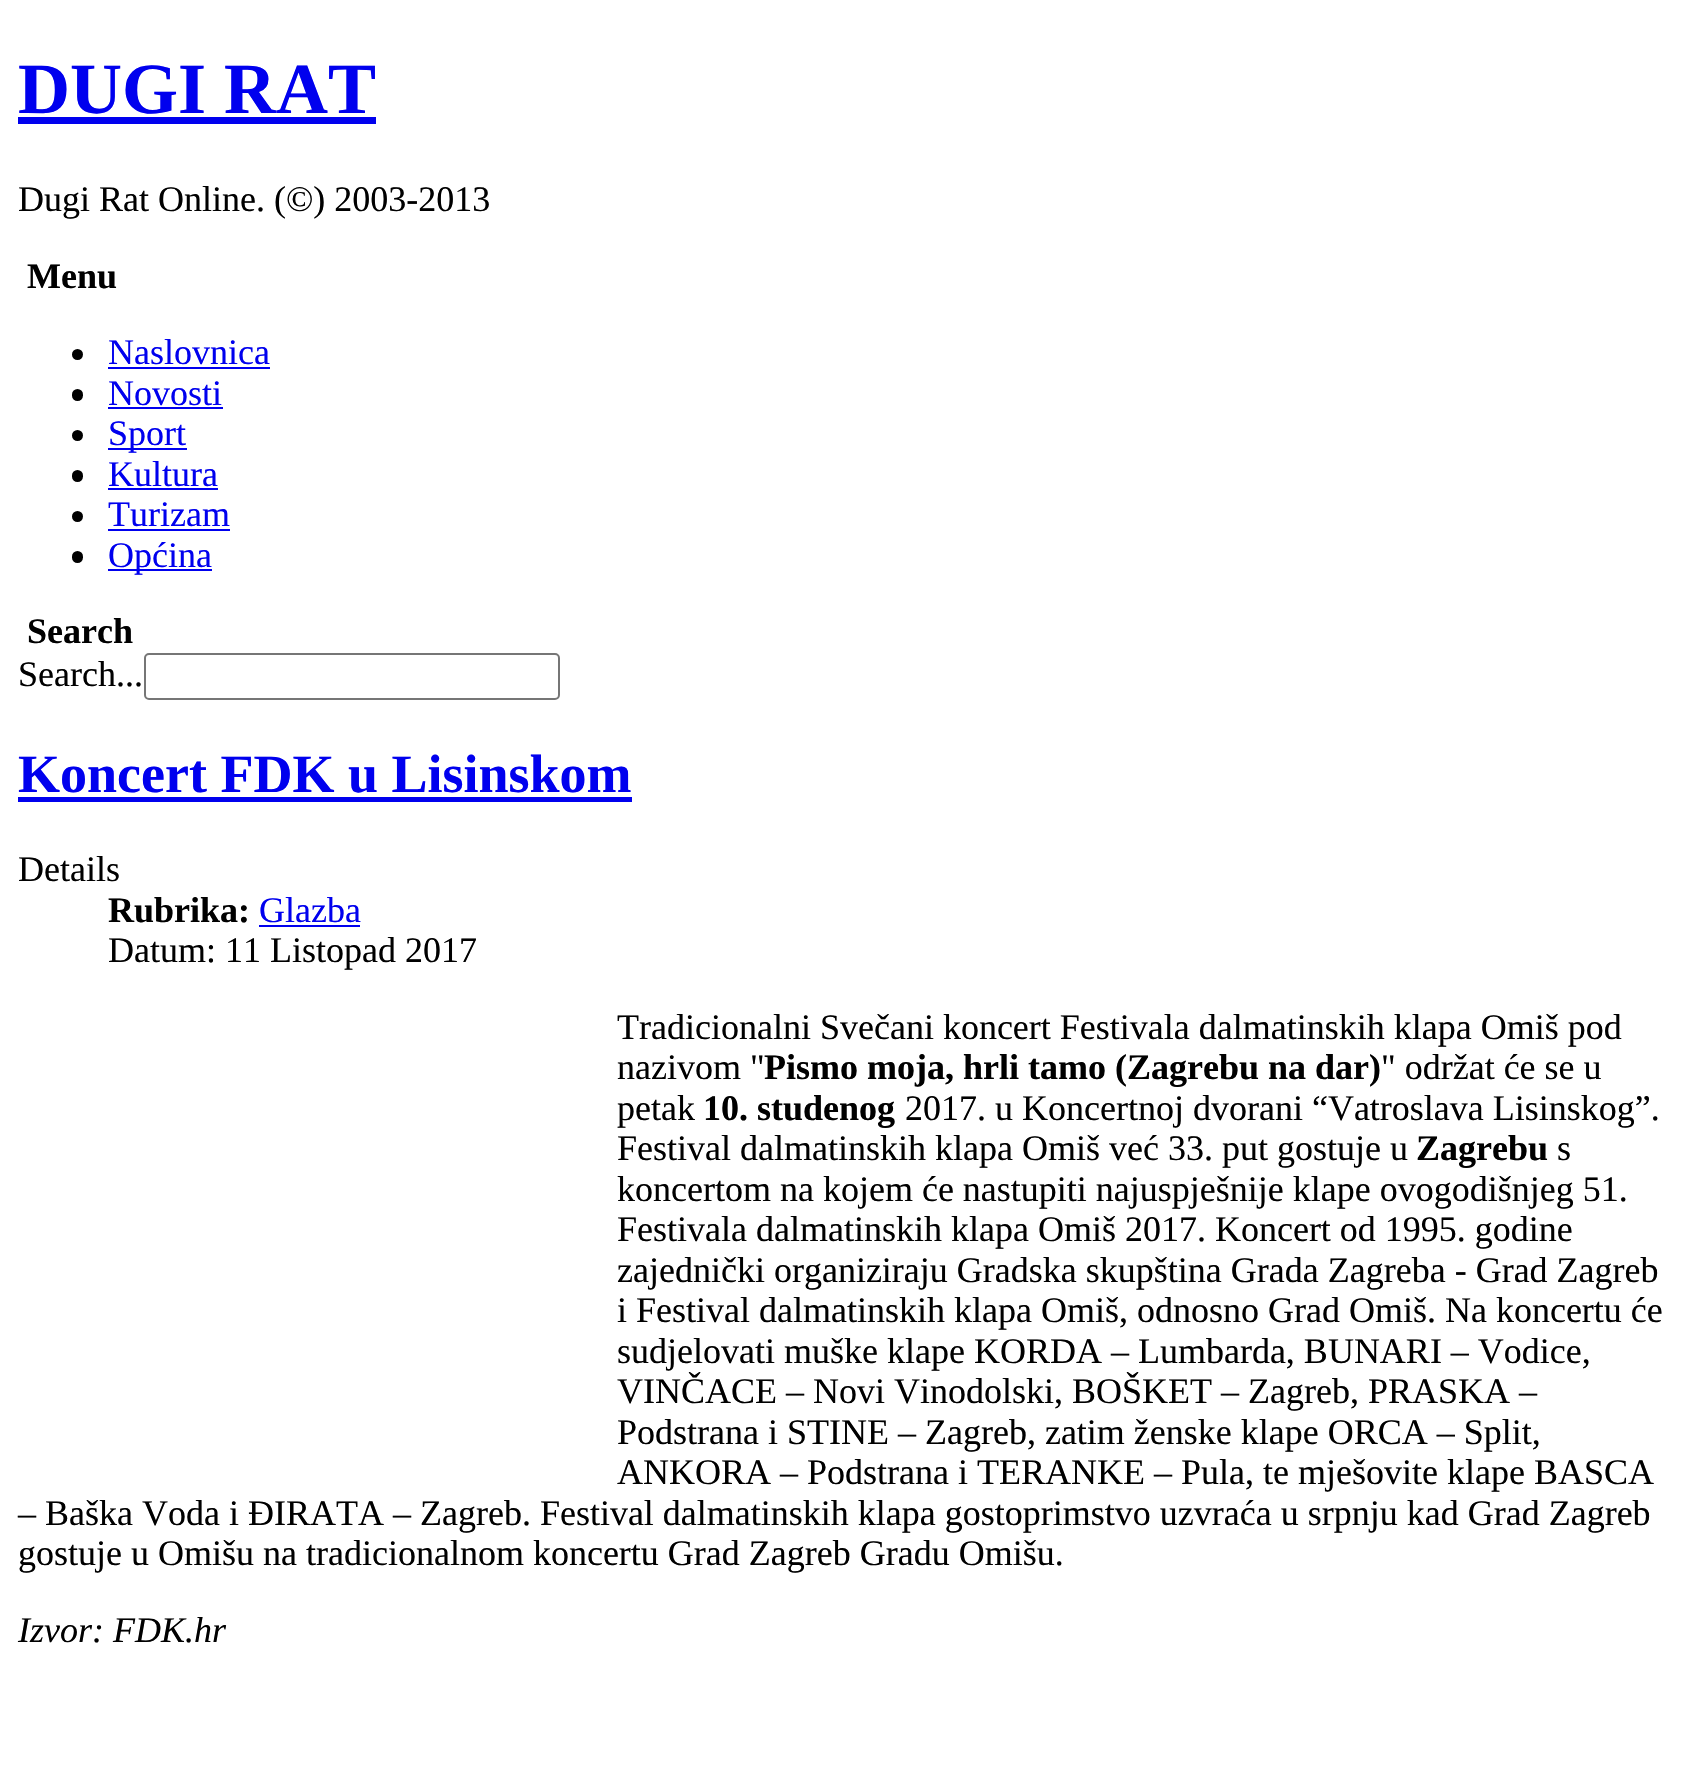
void draw(SkCanvas* canvas) {
	SkPaint paint;
	paint.setAntiAlias(true);
	canvas->clear(0xffffffff);
	SkFont f1(fontMgr->matchFamilyStyle("Liberation Serif", SkFontStyle::Bold()), 72);
	f1.setSubpixel(true);
	paint.setColor(0xff0000ee);
	canvas->drawString("DUGI RAT", 18, 113, f1, paint);
	canvas->drawRect(SkRect::MakeXYWH(18, 117, 358, 7), paint);
	SkFont f2(fontMgr->matchFamilyStyle("Liberation Serif", SkFontStyle::Normal()), 36);
	f2.setSubpixel(true);
	paint.setColor(0xff000000);
	canvas->drawString("Dugi Rat Online. (©) 2003-2013", 18, 211, f2, paint);
	SkFont f3(fontMgr->matchFamilyStyle("Liberation Serif", SkFontStyle::Bold()), 36);
	f3.setSubpixel(true);
	canvas->drawString("Menu", 27, 288, f3, paint);
	canvas->drawCircle(77.5, 354.5, 5.5, paint);
	paint.setColor(0xff0000ee);
	canvas->drawString("Naslovnica", 108, 364, f2, paint);
	canvas->drawRect(SkRect::MakeXYWH(108, 367, 162, 2), paint);
	paint.setColor(0xff000000);
	canvas->drawRoundRect(SkRect::MakeXYWH(72, 389, 11, 12), 5.5, 5.5, paint);
	paint.setColor(0xff0000ee);
	canvas->drawString("Novosti", 108, 405, f2, paint);
	canvas->drawRect(SkRect::MakeXYWH(108, 407, 115, 2), paint);
	paint.setColor(0xff000000);
	canvas->drawCircle(77.5, 435.5, 5.5, paint);
	paint.setColor(0xff0000ee);
	canvas->drawRect(SkRect::MakeXYWH(108, 448, 79, 2), paint);
	canvas->drawString("Sport", 108, 445, f2, paint);
	paint.setColor(0xff000000);
	canvas->drawRoundRect(SkRect::MakeXYWH(72, 470, 11, 12), 5.5, 5.5, paint);
	paint.setColor(0xff0000ee);
	canvas->drawString("Kultura", 108, 486, f2, paint);
	canvas->drawRect(SkRect::MakeXYWH(108, 488, 110, 2), paint);
	paint.setColor(0xff000000);
	canvas->drawCircle(77.5, 516.5, 5.5, paint);
	paint.setColor(0xff0000ee);
	canvas->drawString("Turizam", 108, 526, f2, paint);
	canvas->drawRect(SkRect::MakeXYWH(108, 529, 122, 2), paint);
	paint.setColor(0xff000000);
	canvas->drawRoundRect(SkRect::MakeXYWH(72, 551, 11, 12), 5.5, 5.5, paint);
	paint.setColor(0xff0000ee);
	canvas->drawRect(SkRect::MakeXYWH(108, 569, 104, 2), paint);
	canvas->drawString("Općina", 108, 567, f2, paint);
	paint.setColor(0xff000000);
	canvas->drawString("Search", 27, 643, f3, paint);
	canvas->drawString("Search...", 18, 686, f2, paint);
	paint.setStroke(true);
	paint.setStrokeWidth(2);
	paint.setColor(0xff767676);
	canvas->drawRoundRect(SkRect::MakeXYWH(145, 654, 414, 45), 4, 4, paint);
	SkFont f4(fontMgr->matchFamilyStyle("Liberation Serif", SkFontStyle::Bold()), 54);
	f4.setSubpixel(true);
	paint.setStroke(false);
	paint.setColor(0xff0000ee);
	canvas->drawString("Koncert FDK u Lisinskom", 18, 792, f4, paint);
	canvas->drawRect(SkRect::MakeXYWH(18, 797, 614, 5), paint);
	paint.setColor(0xff000000);
	canvas->drawString("Details", 18, 881, f2, paint);
	canvas->drawString("Rubrika:", 108, 922, f3, paint);
	paint.setColor(0xff0000ee);
	canvas->drawString("Glazba", 259, 922, f2, paint);
	canvas->drawRect(SkRect::MakeXYWH(259, 925, 101, 2), paint);
	paint.setColor(0xff000000);
	canvas->drawString("Datum: 11 Listopad 2017", 108, 962, f2, paint);
	canvas->drawString("Tradicionalni Svečani koncert Festivala dalmatinskih klapa Omiš pod", 617, 1039, f2, paint);
	canvas->drawString("nazivom \"", 617, 1079, f2, paint);
	canvas->drawString("Pismo moja, hrli tamo (Zagrebu na dar)", 764, 1079, f3, paint);
	canvas->drawString("\" održat će se u", 1381, 1079, f2, paint);
	canvas->drawString("petak", 617, 1120, f2, paint);
	canvas->drawString("10. studenog", 703, 1120, f3, paint);
	canvas->drawString("2017. u Koncertnoj dvorani “Vatroslava Lisinskog”.", 905, 1120, f2, paint);
	canvas->drawString("Festival dalmatinskih klapa Omiš već 33. put gostuje u", 617, 1160, f2, paint);
	canvas->drawString("Zagrebu", 1416, 1160, f3, paint);
	canvas->drawString("s", 1557, 1160, f2, paint);
	canvas->drawString("koncertom na kojem će nastupiti najuspješnije klape ovogodišnjeg 51.", 617, 1201, f2, paint);
	canvas->drawString("Festivala dalmatinskih klapa Omiš 2017. Koncert od 1995. godine", 617, 1241, f2, paint);
	canvas->drawString("zajednički organiziraju Gradska skupština Grada Zagreba - Grad Zagreb", 617, 1282, f2, paint);
	canvas->drawString("i Festival dalmatinskih klapa Omiš, odnosno Grad Omiš. Na koncertu će", 617, 1322, f2, paint);
	canvas->drawString("sudjelovati muške klape KORDA – Lumbarda, BUNARI – Vodice,", 617, 1363, f2, paint);
	canvas->drawString("VINČACE – Novi Vinodolski, BOŠKET – Zagreb, PRASKA –", 617, 1403, f2, paint);
	canvas->drawString("Podstrana i STINE – Zagreb, zatim ženske klape ORCA – Split,", 617, 1444, f2, paint);
	canvas->drawString("ANKORA – Podstrana i TERANKE – Pula, te mješovite klape BASCA", 617, 1484, f2, paint);
	canvas->drawString("– Baška Voda i ĐIRATA – Zagreb. Festival dalmatinskih klapa gostoprimstvo uzvraća u srpnju kad Grad Zagreb", 18, 1525, f2, paint);
	canvas->drawString("gostuje u Omišu na tradicionalnom koncertu Grad Zagreb Gradu Omišu.", 18, 1565, f2, paint);
	SkFont f5(fontMgr->matchFamilyStyle("Liberation Serif", SkFontStyle::Italic()), 36);
	f5.setSubpixel(true);
	canvas->drawString("Izvor: FDK.hr", 18, 1642, f5, paint);
}
